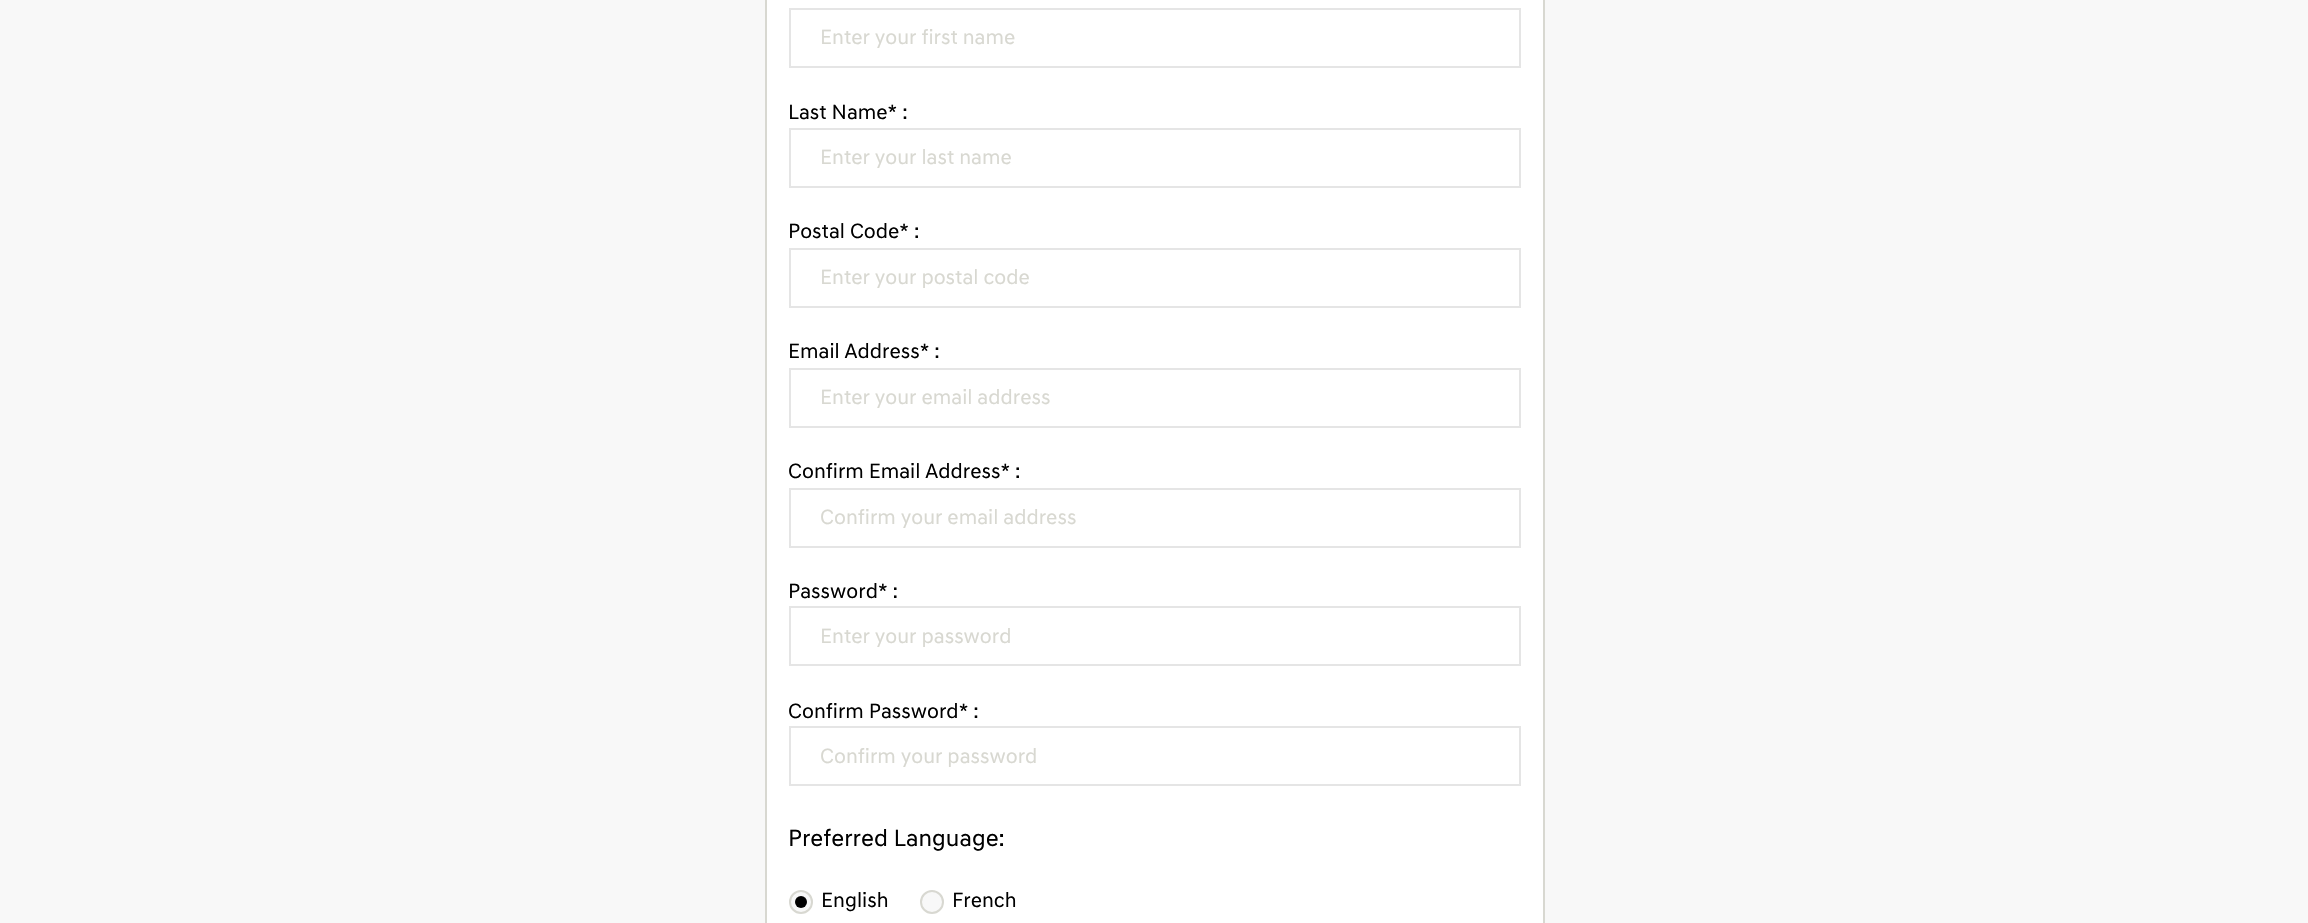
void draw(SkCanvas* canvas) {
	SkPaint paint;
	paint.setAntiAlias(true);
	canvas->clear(0xfff8f8f8);
	paint.setColor(0xffffffff);
	canvas->drawRect(SkRect::MakeXYWH(766, -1, 778, 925), paint);
	paint.setStroke(true);
	paint.setStrokeWidth(2);
	paint.setColor(0xffd8d8d1);
	canvas->drawRect(SkRect::MakeXYWH(766, -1, 778, 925), paint);
	paint.setColor(0xffe5e5e5);
	canvas->drawRect(SkRect::MakeXYWH(790, 9, 730, 58), paint);
	SkFont f1(fontMgr->matchFamilyStyle("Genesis", SkFontStyle::Normal()), 21);
	f1.setSubpixel(true);
	paint.setStroke(false);
	paint.setColor(0xffd8d8d1);
	canvas->drawString("Enter your first name", 820, 44, f1, paint);
	paint.setColor(0xff000000);
	canvas->drawString("Last Name* :", 788, 119, f1, paint);
	paint.setStroke(true);
	paint.setColor(0xffe5e5e5);
	canvas->drawRect(SkRect::MakeXYWH(790, 129, 730, 58), paint);
	paint.setStroke(false);
	paint.setColor(0xffd8d8d1);
	canvas->drawString("Enter your last name", 820, 164, f1, paint);
	paint.setColor(0xff000000);
	canvas->drawString("Postal Code* :", 788, 238, f1, paint);
	paint.setStroke(true);
	paint.setColor(0xffe5e5e5);
	canvas->drawRect(SkRect::MakeXYWH(790, 249, 730, 58), paint);
	paint.setStroke(false);
	paint.setColor(0xffd8d8d1);
	canvas->drawString("Enter your postal code", 820, 284, f1, paint);
	paint.setColor(0xff000000);
	canvas->drawString("Email Address* :", 788, 358, f1, paint);
	paint.setStroke(true);
	paint.setColor(0xffe5e5e5);
	canvas->drawRect(SkRect::MakeXYWH(790, 369, 730, 58), paint);
	paint.setStroke(false);
	paint.setColor(0xffd8d8d1);
	canvas->drawString("Enter your email address", 820, 404, f1, paint);
	paint.setColor(0xff000000);
	canvas->drawString("Confirm Email Address* :", 788, 478, f1, paint);
	paint.setStroke(true);
	paint.setColor(0xffe5e5e5);
	canvas->drawRect(SkRect::MakeXYWH(790, 489, 730, 58), paint);
	paint.setStroke(false);
	paint.setColor(0xffd8d8d1);
	canvas->drawString("Confirm your email address", 820, 524, f1, paint);
	paint.setColor(0xff000000);
	canvas->drawString("Password* :", 788, 598, f1, paint);
	paint.setStroke(true);
	paint.setColor(0xffe5e5e5);
	canvas->drawRect(SkRect::MakeXYWH(790, 607, 730, 58), paint);
	paint.setStroke(false);
	paint.setColor(0xffd8d8d1);
	canvas->drawString("Enter your password", 820, 643, f1, paint);
	paint.setColor(0xff000000);
	canvas->drawString("Confirm Password* :", 788, 718, f1, paint);
	paint.setStroke(true);
	paint.setColor(0xffe5e5e5);
	canvas->drawRect(SkRect::MakeXYWH(790, 727, 730, 58), paint);
	paint.setStroke(false);
	paint.setColor(0xffd8d8d1);
	canvas->drawString("Confirm your password", 820, 763, f1, paint);
	SkFont f2(fontMgr->matchFamilyStyle("Genesis", SkFontStyle::Normal()), 24);
	f2.setSubpixel(true);
	paint.setColor(0xff000000);
	canvas->drawString("Preferred Language:", 788, 846, f2, paint);
	paint.setColor(0xfff8f8f8);
	canvas->drawCircle(801, 902, 11, paint);
	paint.setStroke(true);
	paint.setColor(0xffd8d8d1);
	canvas->drawCircle(801, 902, 11, paint);
	paint.setStroke(false);
	paint.setColor(0xff000000);
	canvas->drawString("English", 821, 907, f1, paint);
	canvas->drawCircle(801, 902, 6, paint);
	paint.setColor(0xfff8f8f8);
	canvas->drawCircle(932, 902, 11, paint);
	paint.setStroke(true);
	paint.setColor(0xffd8d8d1);
	canvas->drawCircle(932, 902, 11, paint);
	paint.setStroke(false);
	paint.setColor(0xff000000);
	canvas->drawString("French", 952, 907, f1, paint);
}
